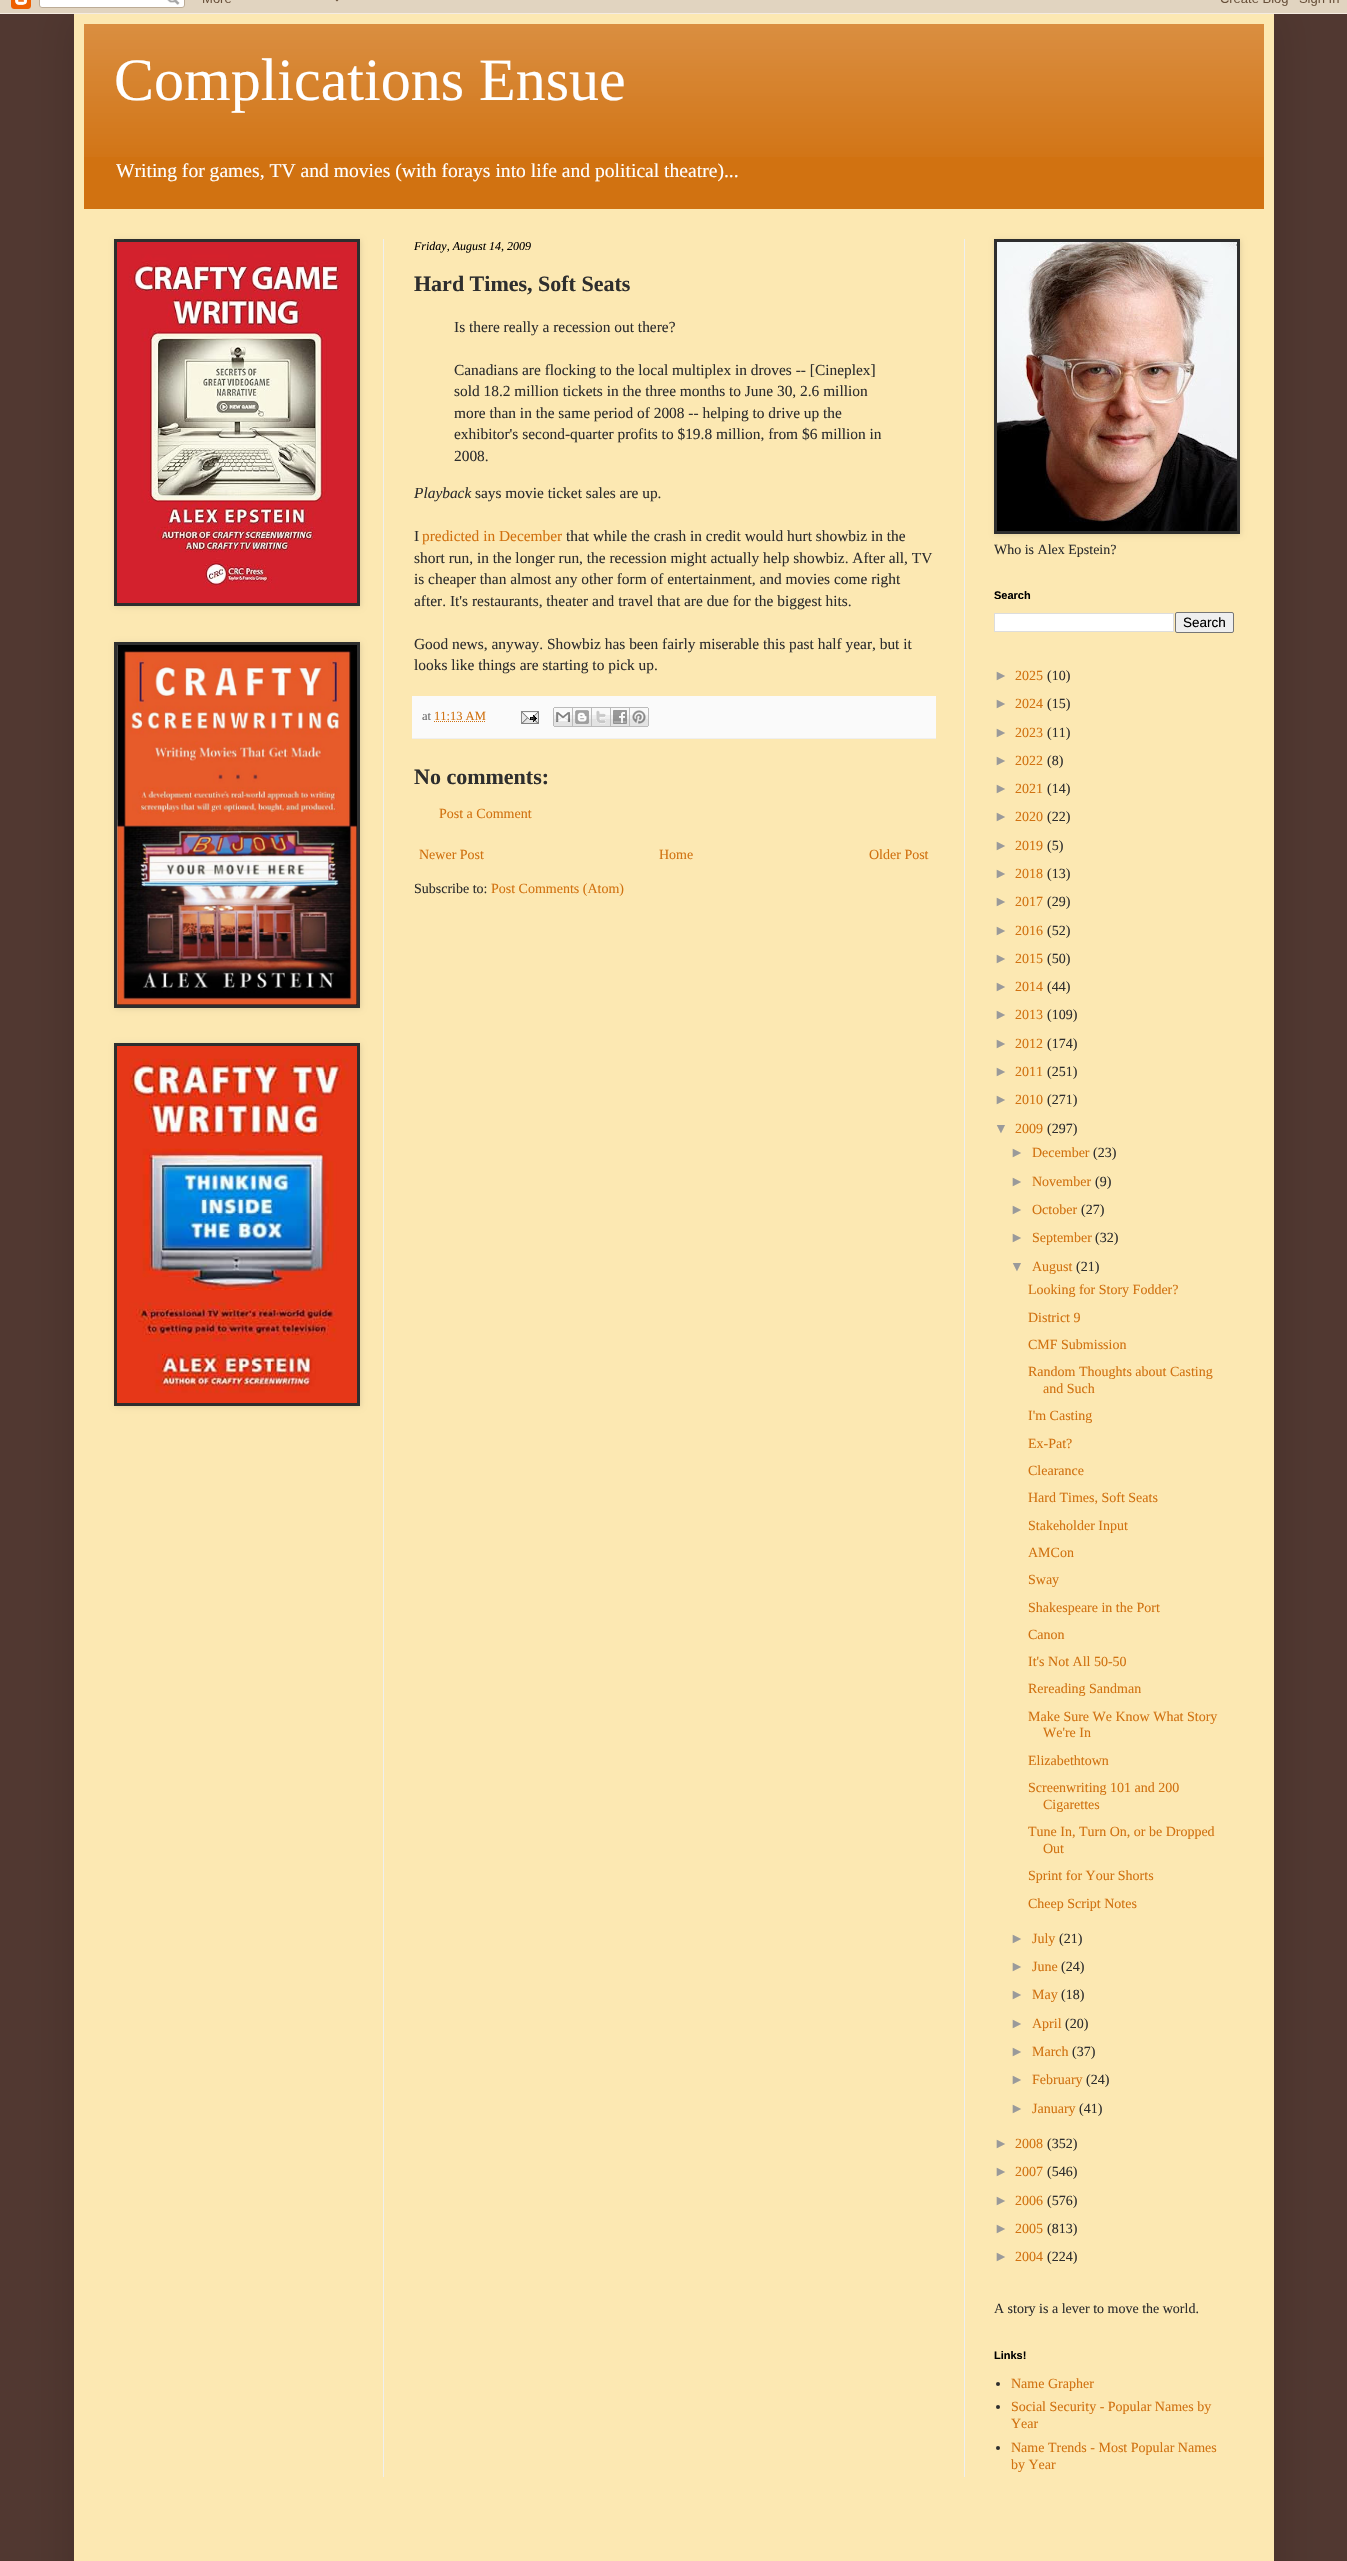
void draw(SkCanvas* canvas) {
	SkPaint paint;
	paint.setAntiAlias(true);
	auto svgPath = [&](const char* data, bool evenOdd = false) {
		SkPath result = *SkParsePath::FromSVGString(data);
		if (evenOdd) result.setFillType(SkPathFillType::kEvenOdd);
		return result;
	};
	canvas->clear(0xff513831);
	paint.setColor(0x26000000);
	paint.setMaskFilter(SkMaskFilter::MakeBlur(kNormal_SkBlurStyle, 20));
	canvas->drawRect(SkRect::MakeXYWH(74, 14, 1200, 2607), paint);
	paint.setMaskFilter(nullptr);
	canvas->drawImageRect(SkImages::DeferredFromEncodedData(SkData::MakeFromFileName("img1.png")), SkRect::MakeXYWH(0, 0, 1347, 14), SkSamplingOptions());
	paint.setColor(0xfffce8b2);
	canvas->drawRect(SkRect::MakeXYWH(74, 14, 1200, 2547), paint);
	paint.setColor(0xffd17211);
	canvas->drawRect(SkRect::MakeXYWH(84, 24, 1180, 185), paint);
	canvas->drawImageRect(SkImages::DeferredFromEncodedData(SkData::MakeFromFileName("img2.png")), SkRect::MakeXYWH(84, 24, 1180, 133), SkSamplingOptions());
	SkFont f1(fontMgr->matchFamilyStyle("Liberation Serif", SkFontStyle::Normal()), 60);
	f1.setSubpixel(true);
	paint.setColor(0xffffffff);
	canvas->drawString("Complications Ensue", 114, 100, f1, paint);
	SkFont f2(fontMgr->matchFamilyStyle("Liberation Serif", SkFontStyle::Normal()), 19.6);
	f2.setSubpixel(true);
	canvas->drawString("Writing for games, TV and movies (with forays into life and political theatre)...", 116, 177, f2, paint);
	paint.setColor(0xffefefef);
	canvas->drawRect(SkRect::MakeXYWH(383, 239, 1, 2238), paint);
	canvas->drawRect(SkRect::MakeXYWH(964, 239, 1, 2238), paint);
	paint.setColor(0x1a000000);
	paint.setMaskFilter(SkMaskFilter::MakeBlur(kNormal_SkBlurStyle, 2.5));
	canvas->drawRect(SkRect::MakeXYWH(115, 240, 246, 367), paint);
	paint.setMaskFilter(nullptr);
	paint.setColor(0xff2e2e2e);
	canvas->drawRect(SkRect::MakeXYWH(114, 239, 246, 367), paint);
	canvas->drawImageRect(SkImages::DeferredFromEncodedData(SkData::MakeFromFileName("img3.png")), SkRect::MakeXYWH(117, 242, 240, 361), SkSamplingOptions());
	paint.setColor(0x1a000000);
	paint.setMaskFilter(SkMaskFilter::MakeBlur(kNormal_SkBlurStyle, 2.5));
	canvas->drawRect(SkRect::MakeXYWH(115, 643, 246, 366), paint);
	paint.setMaskFilter(nullptr);
	paint.setColor(0xff2e2e2e);
	canvas->drawRect(SkRect::MakeXYWH(114, 642, 246, 366), paint);
	canvas->drawImageRect(SkImages::DeferredFromEncodedData(SkData::MakeFromFileName("img4.png")), SkRect::MakeXYWH(117, 645, 240, 360), SkSamplingOptions());
	paint.setColor(0x1a000000);
	paint.setMaskFilter(SkMaskFilter::MakeBlur(kNormal_SkBlurStyle, 2.5));
	canvas->drawRect(SkRect::MakeXYWH(115, 1044, 246, 363), paint);
	paint.setMaskFilter(nullptr);
	paint.setColor(0xff2e2e2e);
	canvas->drawRect(SkRect::MakeXYWH(114, 1043, 246, 363), paint);
	canvas->drawImageRect(SkImages::DeferredFromEncodedData(SkData::MakeFromFileName("img5.png")), SkRect::MakeXYWH(117, 1046, 240, 357), SkSamplingOptions());
	SkFont f3(fontMgr->matchFamilyStyle("Liberation Serif", SkFontStyle::Italic()), 12);
	f3.setSubpixel(true);
	paint.setColor(0xff000000);
	canvas->drawString("Friday, August 14, 2009", 414, 250, f3, paint);
	SkFont f4(fontMgr->matchFamilyStyle("Liberation Serif", SkFontStyle::Bold()), 22);
	f4.setSubpixel(true);
	paint.setColor(0xff2e2e2e);
	canvas->drawString("Hard Times, Soft Seats", 414, 291, f4, paint);
	SkFont f5(fontMgr->matchFamilyStyle("Liberation Serif", SkFontStyle::Normal()), 15.4);
	f5.setSubpixel(true);
	canvas->drawString("Is there really a recession out there?", 454, 332, f5, paint);
	canvas->drawString("Canadians are flocking to the local multiplex in droves -- [Cineplex]", 454, 375, f5, paint);
	canvas->drawString("sold 18.2 million tickets in the three months to June 30, 2.6 million", 454, 396, f5, paint);
	canvas->drawString("more than in the same period of 2008 -- helping to drive up the", 454, 418, f5, paint);
	canvas->drawString("exhibitor's second-quarter profits to $19.8 million, from $6 million in", 454, 439, f5, paint);
	canvas->drawString("2008.", 454, 461, f5, paint);
	SkFont f6(fontMgr->matchFamilyStyle("Liberation Serif", SkFontStyle::Italic()), 15.4);
	f6.setSubpixel(true);
	canvas->drawString("Playback", 414, 498, f6, paint);
	canvas->drawString("says movie ticket sales are up.", 475, 498, f5, paint);
	canvas->drawString("I", 414, 541, f5, paint);
	paint.setColor(0xffd17211);
	canvas->drawString("predicted in December", 422, 541, f5, paint);
	paint.setColor(0xff2e2e2e);
	canvas->drawString("that while the crash in credit would hurt showbiz in the", 566, 541, f5, paint);
	canvas->drawString("short run, in the longer run, the recession might actually help showbiz. After all, TV", 414, 563, f5, paint);
	canvas->drawString("is cheaper than almost any other form of entertainment, and movies come right", 414, 584, f5, paint);
	canvas->drawString("after. It's restaurants, theater and travel that are due for the biggest hits.", 414, 606, f5, paint);
	canvas->drawString("Good news, anyway. Showbiz has been fairly miserable this past half year, but it", 414, 649, f5, paint);
	canvas->drawString("looks like things are starting to pick up.", 414, 670, f5, paint);
	paint.setColor(0xfffafafa);
	canvas->drawRect(SkRect::MakeXYWH(412, 696, 524, 42), paint);
	paint.setColor(0xffefefef);
	canvas->drawRect(SkRect::MakeXYWH(412, 738, 524, 1), paint);
	SkFont f7(fontMgr->matchFamilyStyle("Liberation Serif", SkFontStyle::Normal()), 12.5);
	f7.setSubpixel(true);
	paint.setColor(0xff696969);
	canvas->drawString("at", 422, 720, f7, paint);
	paint.setColor(0xffd17211);
	canvas->drawString("11:13 AM", 434, 720, f7, paint);
	paint.setStroke(true);
	paint.setStrokeWidth(1);
	paint.setPathEffect(SkDashPathEffect::Make({{1, 1}}, 0));
	canvas->drawPath(svgPath("M434 721.5H486"), paint);
	paint.setPathEffect(nullptr);
	canvas->drawImageRect(SkImages::DeferredFromEncodedData(SkData::MakeFromFileName("img6.png")), SkRect::MakeXYWH(521, 711, 18, 13), SkSamplingOptions());
	canvas->drawImageRect(SkImages::DeferredFromEncodedData(SkData::MakeFromFileName("img7.png")), SkRect::MakeXYWH(553, 707, 20, 20), SkSamplingOptions());
	canvas->drawImageRect(SkImages::DeferredFromEncodedData(SkData::MakeFromFileName("img8.png")), SkRect::MakeXYWH(573, 707, 19, 20), SkSamplingOptions());
	canvas->drawImageRect(SkImages::DeferredFromEncodedData(SkData::MakeFromFileName("img9.png")), SkRect::MakeXYWH(592, 707, 19, 20), SkSamplingOptions());
	canvas->drawImageRect(SkImages::DeferredFromEncodedData(SkData::MakeFromFileName("img10.png")), SkRect::MakeXYWH(611, 707, 19, 20), SkSamplingOptions());
	canvas->drawImageRect(SkImages::DeferredFromEncodedData(SkData::MakeFromFileName("img11.png")), SkRect::MakeXYWH(630, 707, 19, 20), SkSamplingOptions());
	paint.setStroke(false);
	paint.setColor(0xff2e2e2e);
	canvas->drawString("No comments:", 414, 784, f4, paint);
	SkFont f8(fontMgr->matchFamilyStyle("Liberation Serif", SkFontStyle::Normal()), 14);
	f8.setSubpixel(true);
	paint.setColor(0xffd17211);
	canvas->drawString("Post a Comment", 439, 818, f8, paint);
	canvas->drawString("Newer Post", 419, 859, f8, paint);
	canvas->drawString("Home", 659, 859, f8, paint);
	canvas->drawString("Older Post", 869, 859, f8, paint);
	paint.setColor(0xff2e2e2e);
	canvas->drawString("Subscribe to:", 414, 893, f8, paint);
	paint.setColor(0xffd17211);
	canvas->drawString("Post Comments (Atom)", 491, 893, f8, paint);
	paint.setColor(0x1a000000);
	paint.setMaskFilter(SkMaskFilter::MakeBlur(kNormal_SkBlurStyle, 2.5));
	canvas->drawRect(SkRect::MakeXYWH(995, 240, 246, 295), paint);
	paint.setMaskFilter(nullptr);
	paint.setColor(0xff2e2e2e);
	canvas->drawRect(SkRect::MakeXYWH(994, 239, 246, 295), paint);
	canvas->drawImageRect(SkImages::DeferredFromEncodedData(SkData::MakeFromFileName("img12.png")), SkRect::MakeXYWH(997, 242, 240, 289), SkSamplingOptions());
	canvas->drawString("Who is Alex Epstein?", 994, 554, f8, paint);
	SkFont f9(fontMgr->matchFamilyStyle("Liberation Sans", SkFontStyle::Bold()), 11);
	f9.setSubpixel(true);
	paint.setColor(0xff000000);
	canvas->drawString("Search", 994, 599, f9, paint);
	paint.setColor(0xffffffff);
	canvas->drawRect(SkRect::MakeXYWH(994.5, 613.5, 179, 18), paint);
	paint.setStroke(true);
	paint.setColor(0xffdddddd);
	canvas->drawRect(SkRect::MakeXYWH(994.5, 613.5, 179, 18), paint);
	paint.setStroke(false);
	paint.setColor(0xffefefef);
	canvas->drawRoundRect(SkRect::MakeXYWH(1175.5, 612.5, 58, 20), 1.5, 1.5, paint);
	paint.setStroke(true);
	paint.setColor(0xff767676);
	canvas->drawRoundRect(SkRect::MakeXYWH(1175.5, 612.5, 58, 20), 1.5, 1.5, paint);
	SkFont f10(fontMgr->matchFamilyStyle("Liberation Sans", SkFontStyle::Normal()), 13.5);
	f10.setSubpixel(true);
	paint.setStroke(false);
	paint.setColor(0xff000000);
	canvas->drawString("Search", 1183, 627, f10, paint);
	SkFont f11(fontMgr->matchFamilyStyle("Liberation Sans", SkFontStyle::Normal()), 14);
	f11.setSubpixel(true);
	paint.setColor(0xff9a9a9a);
	canvas->drawString("►", 994, 680, f11, paint);
	paint.setColor(0xffd17211);
	canvas->drawString("2025", 1015, 680, f8, paint);
	paint.setColor(0xff2e2e2e);
	canvas->drawString("(10)", 1047, 680, f8, paint);
	paint.setColor(0xff9a9a9a);
	canvas->drawString("►", 994, 708, f11, paint);
	paint.setColor(0xffd17211);
	canvas->drawString("2024", 1015, 708, f8, paint);
	paint.setColor(0xff2e2e2e);
	canvas->drawString("(15)", 1047, 708, f8, paint);
	paint.setColor(0xff9a9a9a);
	canvas->drawString("►", 994, 737, f11, paint);
	paint.setColor(0xffd17211);
	canvas->drawString("2023", 1015, 737, f8, paint);
	paint.setColor(0xff2e2e2e);
	canvas->drawString("(11)", 1047, 737, f8, paint);
	paint.setColor(0xff9a9a9a);
	canvas->drawString("►", 994, 765, f11, paint);
	paint.setColor(0xffd17211);
	canvas->drawString("2022", 1015, 765, f8, paint);
	paint.setColor(0xff2e2e2e);
	canvas->drawString("(8)", 1047, 765, f8, paint);
	paint.setColor(0xff9a9a9a);
	canvas->drawString("►", 994, 793, f11, paint);
	paint.setColor(0xffd17211);
	canvas->drawString("2021", 1015, 793, f8, paint);
	paint.setColor(0xff2e2e2e);
	canvas->drawString("(14)", 1047, 793, f8, paint);
	paint.setColor(0xff9a9a9a);
	canvas->drawString("►", 994, 821, f11, paint);
	paint.setColor(0xffd17211);
	canvas->drawString("2020", 1015, 821, f8, paint);
	paint.setColor(0xff2e2e2e);
	canvas->drawString("(22)", 1047, 821, f8, paint);
	paint.setColor(0xff9a9a9a);
	canvas->drawString("►", 994, 850, f11, paint);
	paint.setColor(0xffd17211);
	canvas->drawString("2019", 1015, 850, f8, paint);
	paint.setColor(0xff2e2e2e);
	canvas->drawString("(5)", 1047, 850, f8, paint);
	paint.setColor(0xff9a9a9a);
	canvas->drawString("►", 994, 878, f11, paint);
	paint.setColor(0xffd17211);
	canvas->drawString("2018", 1015, 878, f8, paint);
	paint.setColor(0xff2e2e2e);
	canvas->drawString("(13)", 1047, 878, f8, paint);
	paint.setColor(0xff9a9a9a);
	canvas->drawString("►", 994, 906, f11, paint);
	paint.setColor(0xffd17211);
	canvas->drawString("2017", 1015, 906, f8, paint);
	paint.setColor(0xff2e2e2e);
	canvas->drawString("(29)", 1047, 906, f8, paint);
	paint.setColor(0xff9a9a9a);
	canvas->drawString("►", 994, 935, f11, paint);
	paint.setColor(0xffd17211);
	canvas->drawString("2016", 1015, 935, f8, paint);
	paint.setColor(0xff2e2e2e);
	canvas->drawString("(52)", 1047, 935, f8, paint);
	paint.setColor(0xff9a9a9a);
	canvas->drawString("►", 994, 963, f11, paint);
	paint.setColor(0xffd17211);
	canvas->drawString("2015", 1015, 963, f8, paint);
	paint.setColor(0xff2e2e2e);
	canvas->drawString("(50)", 1047, 963, f8, paint);
	paint.setColor(0xff9a9a9a);
	canvas->drawString("►", 994, 991, f11, paint);
	paint.setColor(0xffd17211);
	canvas->drawString("2014", 1015, 991, f8, paint);
	paint.setColor(0xff2e2e2e);
	canvas->drawString("(44)", 1047, 991, f8, paint);
	paint.setColor(0xff9a9a9a);
	canvas->drawString("►", 994, 1019, f11, paint);
	paint.setColor(0xffd17211);
	canvas->drawString("2013", 1015, 1019, f8, paint);
	paint.setColor(0xff2e2e2e);
	canvas->drawString("(109)", 1047, 1019, f8, paint);
	paint.setColor(0xff9a9a9a);
	canvas->drawString("►", 994, 1048, f11, paint);
	paint.setColor(0xffd17211);
	canvas->drawString("2012", 1015, 1048, f8, paint);
	paint.setColor(0xff2e2e2e);
	canvas->drawString("(174)", 1047, 1048, f8, paint);
	paint.setColor(0xff9a9a9a);
	canvas->drawString("►", 994, 1076, f11, paint);
	paint.setColor(0xffd17211);
	canvas->drawString("2011", 1015, 1076, f8, paint);
	paint.setColor(0xff2e2e2e);
	canvas->drawString("(251)", 1047, 1076, f8, paint);
	paint.setColor(0xff9a9a9a);
	canvas->drawString("►", 994, 1104, f11, paint);
	paint.setColor(0xffd17211);
	canvas->drawString("2010", 1015, 1104, f8, paint);
	paint.setColor(0xff2e2e2e);
	canvas->drawString("(271)", 1047, 1104, f8, paint);
	paint.setColor(0xff9a9a9a);
	canvas->drawString("▼", 994, 1133, f11, paint);
	paint.setColor(0xffd17211);
	canvas->drawString("2009", 1015, 1133, f8, paint);
	paint.setColor(0xff2e2e2e);
	canvas->drawString("(297)", 1047, 1133, f8, paint);
	paint.setColor(0xff9a9a9a);
	canvas->drawString("►", 1010, 1157, f11, paint);
	paint.setColor(0xffd17211);
	canvas->drawString("December", 1032, 1157, f8, paint);
	paint.setColor(0xff2e2e2e);
	canvas->drawString("(23)", 1093, 1157, f8, paint);
	paint.setColor(0xff9a9a9a);
	canvas->drawString("►", 1010, 1186, f11, paint);
	paint.setColor(0xffd17211);
	canvas->drawString("November", 1032, 1186, f8, paint);
	paint.setColor(0xff2e2e2e);
	canvas->drawString("(9)", 1095, 1186, f8, paint);
	paint.setColor(0xff9a9a9a);
	canvas->drawString("►", 1010, 1214, f11, paint);
	paint.setColor(0xffd17211);
	canvas->drawString("October", 1032, 1214, f8, paint);
	paint.setColor(0xff2e2e2e);
	canvas->drawString("(27)", 1081, 1214, f8, paint);
	paint.setColor(0xff9a9a9a);
	canvas->drawString("►", 1010, 1242, f11, paint);
	paint.setColor(0xffd17211);
	canvas->drawString("September", 1032, 1242, f8, paint);
	paint.setColor(0xff2e2e2e);
	canvas->drawString("(32)", 1095, 1242, f8, paint);
	paint.setColor(0xff9a9a9a);
	canvas->drawString("▼", 1010, 1271, f11, paint);
	paint.setColor(0xffd17211);
	canvas->drawString("August", 1032, 1271, f8, paint);
	paint.setColor(0xff2e2e2e);
	canvas->drawString("(21)", 1076, 1271, f8, paint);
	paint.setColor(0xffd17211);
	canvas->drawString("Looking for Story Fodder?", 1028, 1294, f8, paint);
	canvas->drawString("District 9", 1028, 1322, f8, paint);
	canvas->drawString("CMF Submission", 1028, 1349, f8, paint);
	canvas->drawString("Random Thoughts about Casting", 1028, 1376, f8, paint);
	canvas->drawString("and Such", 1043, 1393, f8, paint);
	canvas->drawString("I'm Casting", 1028, 1420, f8, paint);
	canvas->drawString("Ex-Pat?", 1028, 1448, f8, paint);
	canvas->drawString("Clearance", 1028, 1475, f8, paint);
	canvas->drawString("Hard Times, Soft Seats", 1028, 1502, f8, paint);
	canvas->drawString("Stakeholder Input", 1028, 1530, f8, paint);
	canvas->drawString("AMCon", 1028, 1557, f8, paint);
	canvas->drawString("Sway", 1028, 1584, f8, paint);
	canvas->drawString("Shakespeare in the Port", 1028, 1612, f8, paint);
	canvas->drawString("Canon", 1028, 1639, f8, paint);
	canvas->drawString("It's Not All 50-50", 1028, 1666, f8, paint);
	canvas->drawString("Rereading Sandman", 1028, 1693, f8, paint);
	canvas->drawString("Make Sure We Know What Story", 1028, 1721, f8, paint);
	canvas->drawString("We're In", 1043, 1737, f8, paint);
	canvas->drawString("Elizabethtown", 1028, 1765, f8, paint);
	canvas->drawString("Screenwriting 101 and 200", 1028, 1792, f8, paint);
	canvas->drawString("Cigarettes", 1043, 1809, f8, paint);
	canvas->drawString("Tune In, Turn On, or be Dropped", 1028, 1836, f8, paint);
	canvas->drawString("Out", 1043, 1853, f8, paint);
	canvas->drawString("Sprint for Your Shorts", 1028, 1880, f8, paint);
	canvas->drawString("Cheep Script Notes", 1028, 1908, f8, paint);
	paint.setColor(0xff9a9a9a);
	canvas->drawString("►", 1010, 1943, f11, paint);
	paint.setColor(0xffd17211);
	canvas->drawString("July", 1032, 1943, f8, paint);
	paint.setColor(0xff2e2e2e);
	canvas->drawString("(21)", 1059, 1943, f8, paint);
	paint.setColor(0xff9a9a9a);
	canvas->drawString("►", 1010, 1971, f11, paint);
	paint.setColor(0xffd17211);
	canvas->drawString("June", 1032, 1971, f8, paint);
	paint.setColor(0xff2e2e2e);
	canvas->drawString("(24)", 1061, 1971, f8, paint);
	paint.setColor(0xff9a9a9a);
	canvas->drawString("►", 1010, 1999, f11, paint);
	paint.setColor(0xffd17211);
	canvas->drawString("May", 1032, 1999, f8, paint);
	paint.setColor(0xff2e2e2e);
	canvas->drawString("(18)", 1061, 1999, f8, paint);
	paint.setColor(0xff9a9a9a);
	canvas->drawString("►", 1010, 2028, f11, paint);
	paint.setColor(0xffd17211);
	canvas->drawString("April", 1032, 2028, f8, paint);
	paint.setColor(0xff2e2e2e);
	canvas->drawString("(20)", 1065, 2028, f8, paint);
	paint.setColor(0xff9a9a9a);
	canvas->drawString("►", 1010, 2056, f11, paint);
	paint.setColor(0xffd17211);
	canvas->drawString("March", 1032, 2056, f8, paint);
	paint.setColor(0xff2e2e2e);
	canvas->drawString("(37)", 1072, 2056, f8, paint);
	paint.setColor(0xff9a9a9a);
	canvas->drawString("►", 1010, 2084, f11, paint);
	paint.setColor(0xffd17211);
	canvas->drawString("February", 1032, 2084, f8, paint);
	paint.setColor(0xff2e2e2e);
	canvas->drawString("(24)", 1086, 2084, f8, paint);
	paint.setColor(0xff9a9a9a);
	canvas->drawString("►", 1010, 2113, f11, paint);
	paint.setColor(0xffd17211);
	canvas->drawString("January", 1032, 2113, f8, paint);
	paint.setColor(0xff2e2e2e);
	canvas->drawString("(41)", 1079, 2113, f8, paint);
	paint.setColor(0xff9a9a9a);
	canvas->drawString("►", 994, 2148, f11, paint);
	paint.setColor(0xffd17211);
	canvas->drawString("2008", 1015, 2148, f8, paint);
	paint.setColor(0xff2e2e2e);
	canvas->drawString("(352)", 1047, 2148, f8, paint);
	paint.setColor(0xff9a9a9a);
	canvas->drawString("►", 994, 2176, f11, paint);
	paint.setColor(0xffd17211);
	canvas->drawString("2007", 1015, 2176, f8, paint);
	paint.setColor(0xff2e2e2e);
	canvas->drawString("(546)", 1047, 2176, f8, paint);
	paint.setColor(0xff9a9a9a);
	canvas->drawString("►", 994, 2205, f11, paint);
	paint.setColor(0xffd17211);
	canvas->drawString("2006", 1015, 2205, f8, paint);
	paint.setColor(0xff2e2e2e);
	canvas->drawString("(576)", 1047, 2205, f8, paint);
	paint.setColor(0xff9a9a9a);
	canvas->drawString("►", 994, 2233, f11, paint);
	paint.setColor(0xffd17211);
	canvas->drawString("2005", 1015, 2233, f8, paint);
	paint.setColor(0xff2e2e2e);
	canvas->drawString("(813)", 1047, 2233, f8, paint);
	paint.setColor(0xff9a9a9a);
	canvas->drawString("►", 994, 2261, f11, paint);
	paint.setColor(0xffd17211);
	canvas->drawString("2004", 1015, 2261, f8, paint);
	paint.setColor(0xff2e2e2e);
	canvas->drawString("(224)", 1047, 2261, f8, paint);
	canvas->drawString("A story is a lever to move the world.", 994, 2313, f8, paint);
	paint.setColor(0xff000000);
	canvas->drawString("Links!", 994, 2359, f9, paint);
	paint.setColor(0xff2e2e2e);
	canvas->drawCircle(998, 2384, 2, paint);
	paint.setColor(0xffd17211);
	canvas->drawString("Name Grapher", 1011, 2388, f8, paint);
	paint.setColor(0xff2e2e2e);
	canvas->drawCircle(998, 2407, 2, paint);
	paint.setColor(0xffd17211);
	canvas->drawString("Social Security - Popular Names by", 1011, 2411, f8, paint);
	canvas->drawString("Year", 1011, 2428, f8, paint);
	paint.setColor(0xff2e2e2e);
	canvas->drawCircle(998, 2448, 2, paint);
	paint.setColor(0xffd17211);
	canvas->drawString("Name Trends - Most Popular Names", 1011, 2452, f8, paint);
	canvas->drawString("by Year", 1011, 2469, f8, paint);
}
